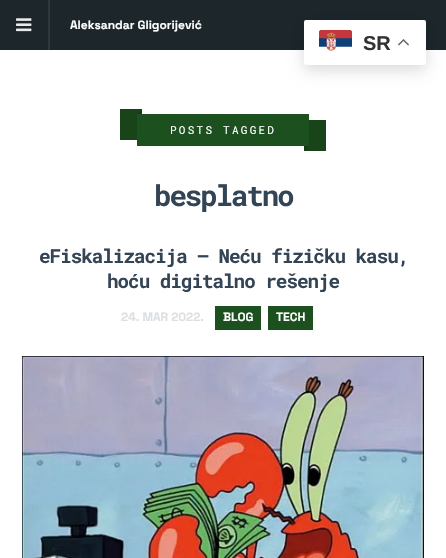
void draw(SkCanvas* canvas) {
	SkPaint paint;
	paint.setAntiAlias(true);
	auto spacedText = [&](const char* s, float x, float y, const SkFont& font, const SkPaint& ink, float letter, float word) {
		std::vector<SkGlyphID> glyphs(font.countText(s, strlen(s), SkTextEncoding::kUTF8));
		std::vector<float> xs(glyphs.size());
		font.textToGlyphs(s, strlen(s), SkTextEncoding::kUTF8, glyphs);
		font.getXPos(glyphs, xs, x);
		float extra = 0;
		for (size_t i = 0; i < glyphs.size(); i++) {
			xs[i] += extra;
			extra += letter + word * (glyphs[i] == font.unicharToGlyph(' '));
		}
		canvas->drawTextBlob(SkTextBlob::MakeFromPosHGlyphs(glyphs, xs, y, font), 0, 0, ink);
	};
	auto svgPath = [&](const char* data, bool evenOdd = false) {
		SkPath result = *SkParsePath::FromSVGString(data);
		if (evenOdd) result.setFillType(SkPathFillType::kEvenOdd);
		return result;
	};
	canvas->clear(0xffffffff);
	paint.setColor(0xff1c262b);
	canvas->drawRect(SkRect::MakeXYWH(0, 0, 446, 50), paint);
	paint.setColor(0xff2e373c);
	canvas->drawRect(SkRect::MakeXYWH(48, 0, 2, 50), paint);
	canvas->drawImageRect(SkImages::DeferredFromEncodedData(SkData::MakeFromFileName("img1.png")), SkRect::MakeXYWH(16, 18, 16, 14), SkSamplingOptions());
	SkFont f1(fontMgr->matchFamilyStyle("Space Grotesk", SkFontStyle::Bold()), 12);
	f1.setSubpixel(true);
	paint.setColor(0xffffffff);
	canvas->drawString("Aleksandar Gligorijević", 70, 29, f1, paint);
	paint.setColor(0xff19441a);
	canvas->drawRect(SkRect::MakeXYWH(120, 109, 22, 31), paint);
	canvas->drawRect(SkRect::MakeXYWH(304, 120, 22, 31), paint);
	paint.setColor(0xff1d501f);
	canvas->drawRect(SkRect::MakeXYWH(137, 114, 172, 32), paint);
	paint.setColor(0xff163917);
	canvas->drawPath(svgPath("M142 114H137L142 109Z"), paint);
	SkFont f2(fontMgr->matchFamilyStyle("Roboto Mono", SkFontStyle::Normal()), 11);
	f2.setSubpixel(true);
	paint.setColor(0xffffffff);
	spacedText("POSTS TAGGED", 170, 134, f2, paint, 2.25, 0);
	paint.setColor(0xff163917);
	canvas->drawPath(svgPath("M304 146H309L304 151Z"), paint);
	SkFont f3(fontMgr->matchFamilyStyle("Roboto Mono", SkFontStyle::Bold()), 29);
	f3.setSubpixel(true);
	paint.setColor(0xff334455);
	spacedText("besplatno", 154, 206, f3, paint, -2, 0);
	SkFont f4(fontMgr->matchFamilyStyle("Roboto Mono", SkFontStyle::Bold()), 19.25);
	f4.setSubpixel(true);
	spacedText("eFiskalizacija – Neću fizičku kasu,", 39, 263, f4, paint, -1, 0);
	spacedText("hoću digitalno rešenje", 107, 288, f4, paint, -1, 0);
	paint.setColor(0xffdcdfe2);
	canvas->drawString("24. MAR 2022.", 121, 321, f1, paint);
	paint.setColor(0xff1d501f);
	canvas->drawRect(SkRect::MakeXYWH(215, 306, 46, 24), paint);
	paint.setColor(0xffffffff);
	canvas->drawString("BLOG", 223, 321, f1, paint);
	paint.setColor(0xff1d501f);
	canvas->drawRect(SkRect::MakeXYWH(268, 306, 45, 24), paint);
	paint.setColor(0xffffffff);
	canvas->drawString("TECH", 276, 321, f1, paint);
	canvas->drawImageRect(SkImages::DeferredFromEncodedData(SkData::MakeFromFileName("img2.png")), SkRect::MakeXYWH(22, 356, 402, 202), SkSamplingOptions());
	paint.setColor(0x26000000);
	paint.setMaskFilter(SkMaskFilter::MakeBlur(kNormal_SkBlurStyle, 7.5));
	canvas->drawRoundRect(SkRect::MakeXYWH(304, 25, 122, 45), 2, 2, paint);
	paint.setMaskFilter(nullptr);
	paint.setColor(0xffffffff);
	canvas->drawRoundRect(SkRect::MakeXYWH(304, 20, 122, 45), 2, 2, paint);
	canvas->drawImageRect(SkImages::DeferredFromEncodedData(SkData::MakeFromFileName("img3.png")), SkRect::MakeXYWH(319, 30, 33, 21), SkSamplingOptions());
	SkFont f5(fontMgr->matchFamilyStyle("Liberation Sans", SkFontStyle::Bold()), 20);
	f5.setSubpixel(true);
	paint.setColor(0xff333333);
	canvas->drawString("SR", 363, 50, f5, paint);
	canvas->drawImageRect(SkImages::DeferredFromEncodedData(SkData::MakeFromFileName("img4.png")), SkRect::MakeXYWH(398, 39, 11, 7), SkSamplingOptions());
}
